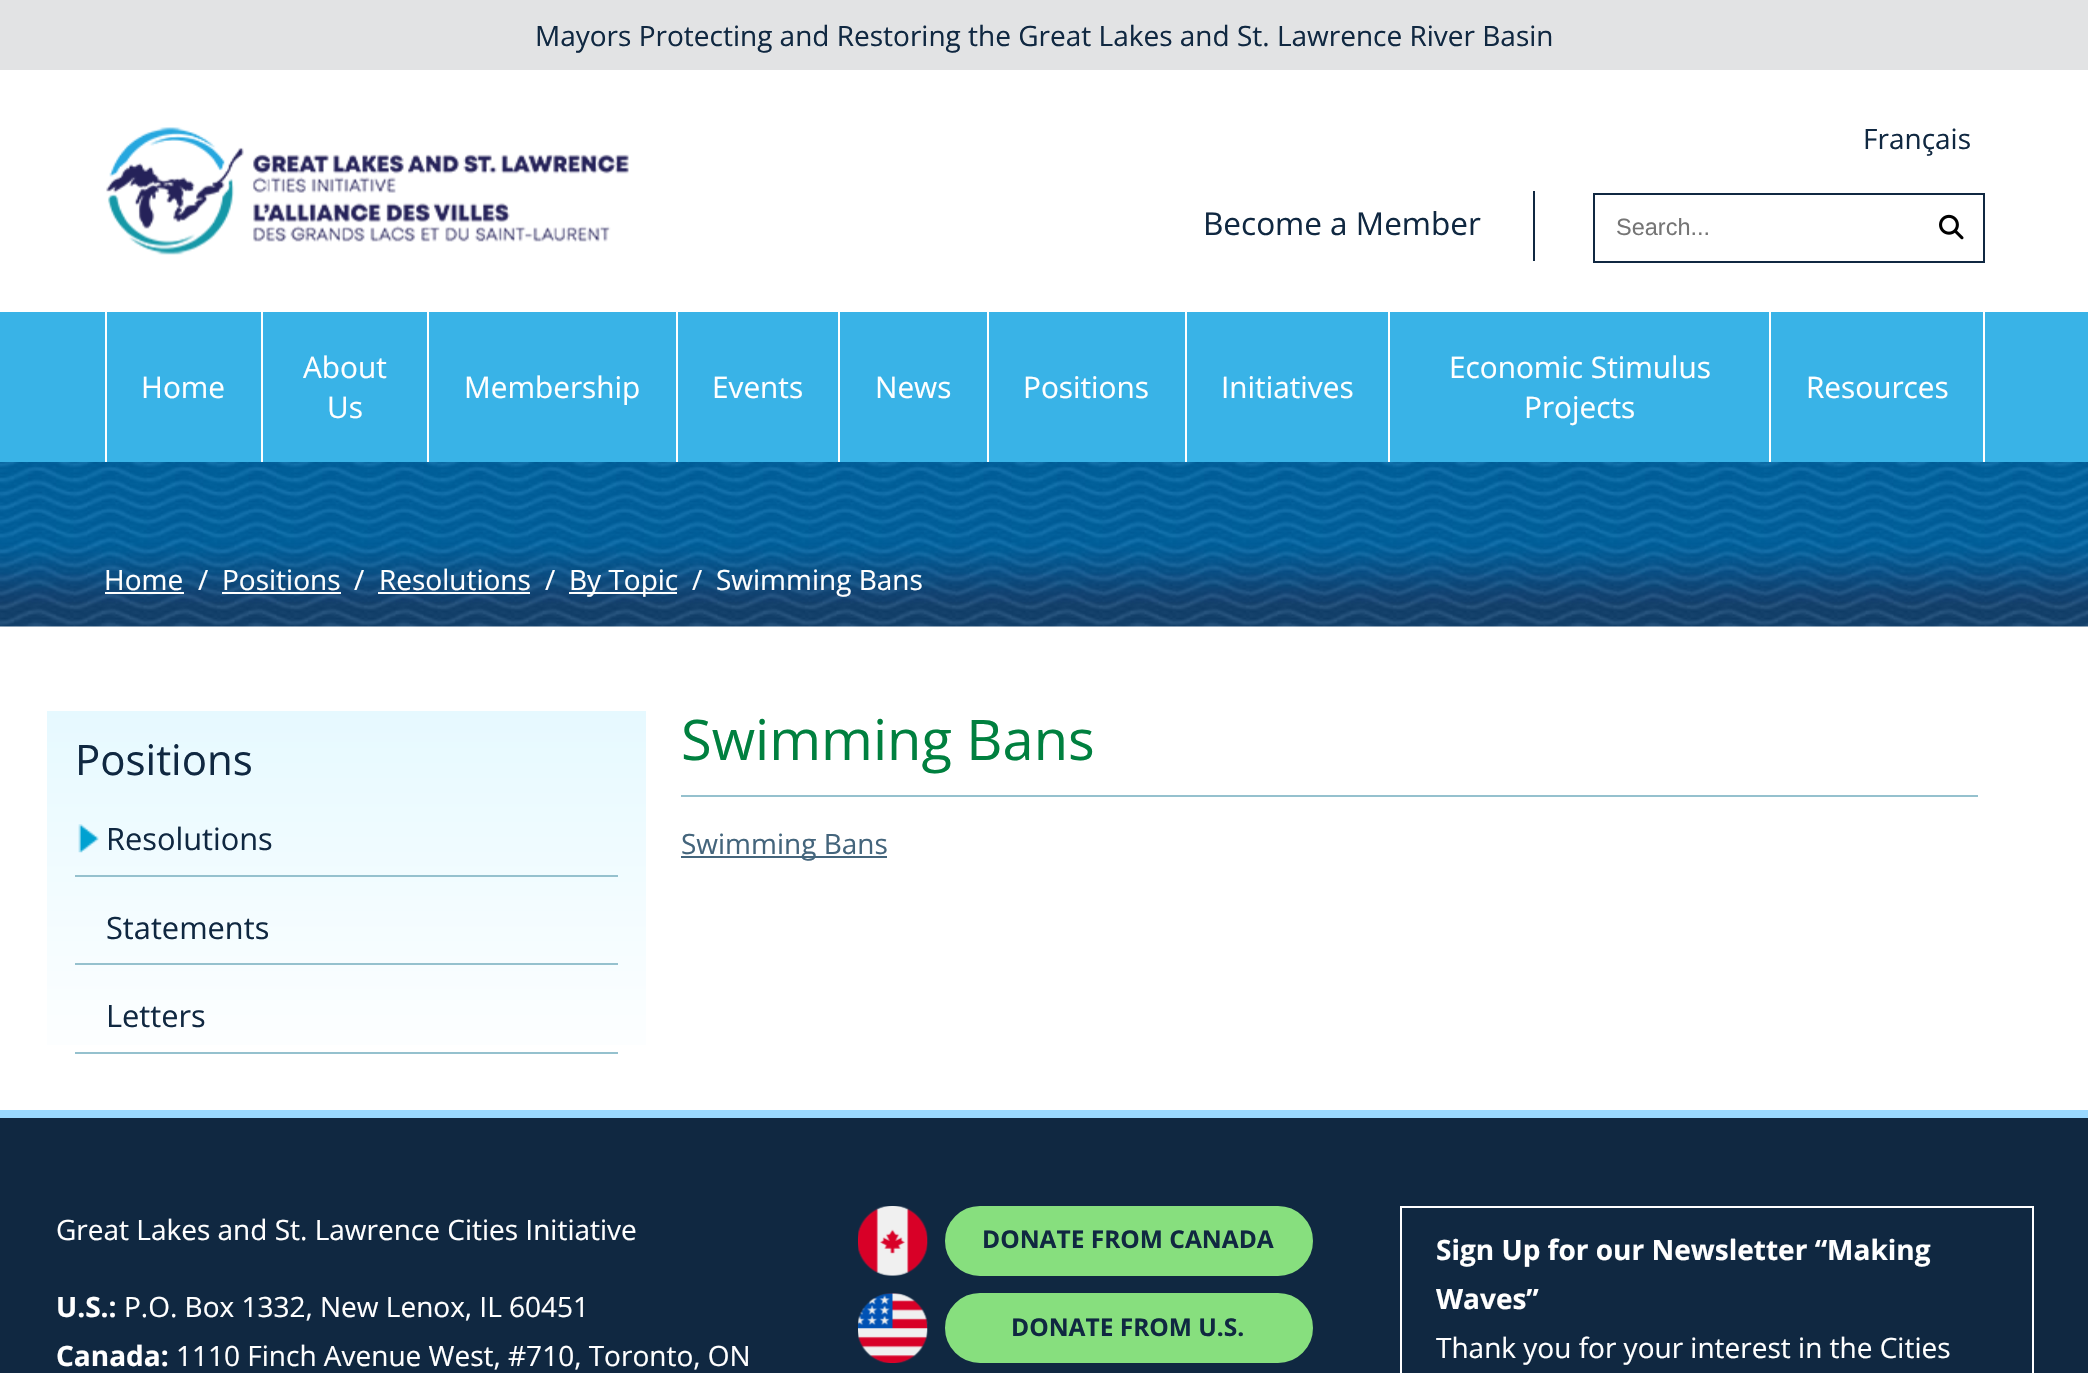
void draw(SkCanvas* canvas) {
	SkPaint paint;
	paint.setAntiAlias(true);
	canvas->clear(0xffffffff);
	paint.setColor(0xffe2e3e4);
	canvas->drawRect(SkRect::MakeXYWH(0, 0, 2088, 70), paint);
	SkFont f1(fontMgr->matchFamilyStyle("Open Sans", SkFontStyle::Normal()), 28);
	f1.setSubpixel(true);
	paint.setColor(0xff102841);
	canvas->drawString("Mayors Protecting and Restoring the Great Lakes and St. Lawrence River Basin", 535, 46, f1, paint);
	canvas->drawImageRect(SkImages::DeferredFromEncodedData(SkData::MakeFromFileName("img1.png")), SkRect::MakeXYWH(106, 127, 523, 128), SkSamplingOptions());
	canvas->drawString("Français", 1863, 149, f1, paint);
	SkFont f2(fontMgr->matchFamilyStyle("Open Sans", SkFontStyle::Normal()), 31.5);
	f2.setSubpixel(true);
	canvas->drawString("Become a Member", 1203, 235, f2, paint);
	canvas->drawRect(SkRect::MakeXYWH(1533, 191, 2, 70), paint);
	paint.setStroke(true);
	paint.setStrokeWidth(2);
	canvas->drawRect(SkRect::MakeXYWH(1594, 194, 390, 68), paint);
	SkFont f3(fontMgr->matchFamilyStyle("Liberation Sans", SkFontStyle::Normal()), 23.5);
	f3.setSubpixel(true);
	paint.setStroke(false);
	paint.setColor(0xff757575);
	canvas->drawString("Search...", 1616, 235, f3, paint);
	canvas->drawImageRect(SkImages::DeferredFromEncodedData(SkData::MakeFromFileName("img2.png")), SkRect::MakeXYWH(1939, 214, 25, 26), SkSamplingOptions());
	paint.setColor(0xff39b3e7);
	canvas->drawRect(SkRect::MakeXYWH(0, 312, 2088, 150), paint);
	paint.setColor(0xffffffff);
	canvas->drawRect(SkRect::MakeXYWH(261, 312, 2, 150), paint);
	canvas->drawRect(SkRect::MakeXYWH(105, 312, 2, 150), paint);
	SkFont f4(fontMgr->matchFamilyStyle("Open Sans", SkFontStyle::Normal()), 29.75);
	f4.setSubpixel(true);
	canvas->drawString("Home", 141, 398, f4, paint);
	canvas->drawRect(SkRect::MakeXYWH(427, 312, 2, 150), paint);
	canvas->drawString("About", 303, 378, f4, paint);
	canvas->drawString("Us", 327, 418, f4, paint);
	canvas->drawRect(SkRect::MakeXYWH(676, 312, 2, 150), paint);
	canvas->drawString("Membership", 464, 398, f4, paint);
	canvas->drawRect(SkRect::MakeXYWH(838, 312, 2, 150), paint);
	canvas->drawString("Events", 712, 398, f4, paint);
	canvas->drawRect(SkRect::MakeXYWH(987, 312, 2, 150), paint);
	canvas->drawString("News", 875, 398, f4, paint);
	canvas->drawRect(SkRect::MakeXYWH(1185, 312, 2, 150), paint);
	canvas->drawString("Positions", 1023, 398, f4, paint);
	canvas->drawRect(SkRect::MakeXYWH(1388, 312, 2, 150), paint);
	canvas->drawString("Initiatives", 1221, 398, f4, paint);
	canvas->drawRect(SkRect::MakeXYWH(1769, 312, 2, 150), paint);
	canvas->drawString("Economic Stimulus", 1449, 378, f4, paint);
	canvas->drawString("Projects", 1524, 418, f4, paint);
	canvas->drawRect(SkRect::MakeXYWH(1983, 312, 2, 150), paint);
	canvas->drawString("Resources", 1806, 398, f4, paint);
	canvas->drawImageRect(SkImages::DeferredFromEncodedData(SkData::MakeFromFileName("img3.png")), SkRect::MakeXYWH(0, 462, 2088, 165), SkSamplingOptions());
	canvas->drawString("Home", 104, 590, f1, paint);
	canvas->drawRect(SkRect::MakeXYWH(105, 592, 79, 2), paint);
	canvas->drawString("/", 198, 590, f1, paint);
	canvas->drawString("Positions", 222, 590, f1, paint);
	canvas->drawRect(SkRect::MakeXYWH(222, 592, 119, 2), paint);
	canvas->drawString("/", 354, 590, f1, paint);
	canvas->drawString("Resolutions", 379, 590, f1, paint);
	canvas->drawRect(SkRect::MakeXYWH(378, 592, 152, 2), paint);
	canvas->drawString("/", 545, 590, f1, paint);
	canvas->drawRect(SkRect::MakeXYWH(569, 592, 108, 2), paint);
	canvas->drawString("By Topic", 569, 590, f1, paint);
	canvas->drawString("/", 692, 590, f1, paint);
	canvas->drawString("Swimming Bans", 716, 590, f1, paint);
	{
		const SkColor colors[] = {0xffe6f9ff, 0xffffffff};
		const float stops[] = {0, 1};
		const SkPoint ends[] = {{347, 711}, {347, 1082}};
		paint.setShader(SkGradientShader::MakeLinear(ends, colors, stops, 2, SkTileMode::kClamp));
		paint.setAlpha(255);
	}
	canvas->drawRect(SkRect::MakeXYWH(47, 711, 599, 334), paint);
	SkFont f5(fontMgr->matchFamilyStyle("Open Sans", SkFontStyle::Normal()), 42);
	f5.setSubpixel(true);
	paint.setShader(nullptr);
	paint.setColor(0xff102841);
	canvas->drawString("Positions", 75, 775, f5, paint);
	paint.setColor(0xff95c1ce);
	canvas->drawRect(SkRect::MakeXYWH(75, 875, 543, 2), paint);
	canvas->drawImageRect(SkImages::DeferredFromEncodedData(SkData::MakeFromFileName("img4.png")), SkRect::MakeXYWH(78, 824, 21, 29), SkSamplingOptions());
	SkFont f6(fontMgr->matchFamilyStyle("Open Sans", SkFontStyle::Normal()), 30.75);
	f6.setSubpixel(true);
	paint.setColor(0xff102841);
	canvas->drawString("Resolutions", 106, 850, f6, paint);
	paint.setColor(0xff95c1ce);
	canvas->drawRect(SkRect::MakeXYWH(75, 963, 543, 2), paint);
	paint.setColor(0xff102841);
	canvas->drawString("Statements", 106, 939, f6, paint);
	paint.setColor(0xff95c1ce);
	canvas->drawRect(SkRect::MakeXYWH(75, 1052, 543, 2), paint);
	paint.setColor(0xff102841);
	canvas->drawString("Letters", 106, 1027, f6, paint);
	paint.setColor(0xff95c1ce);
	canvas->drawRect(SkRect::MakeXYWH(681, 795, 1297, 2), paint);
	SkFont f7(fontMgr->matchFamilyStyle("Open Sans", SkFontStyle::Normal()), 56);
	f7.setSubpixel(true);
	paint.setColor(0xff00803f);
	canvas->drawString("Swimming Bans", 681, 760, f7, paint);
	paint.setColor(0xff44657c);
	canvas->drawRect(SkRect::MakeXYWH(681, 856, 206, 2), paint);
	canvas->drawString("Swimming Bans", 681, 854, f1, paint);
	paint.setColor(0xff102841);
	canvas->drawRect(SkRect::MakeXYWH(0, 1118, 2088, 255), paint);
	paint.setColor(0xff9ad8ff);
	canvas->drawRect(SkRect::MakeXYWH(0, 1110, 2088, 8), paint);
	paint.setColor(0xffffffff);
	canvas->drawString("Great Lakes and St. Lawrence Cities Initiative", 56, 1240, f1, paint);
	SkFont f8(fontMgr->matchFamilyStyle("Open Sans", SkFontStyle::Bold()), 28);
	f8.setSubpixel(true);
	canvas->drawString("U.S.:", 56, 1317, f8, paint);
	canvas->drawString("P.O. Box 1332, New Lenox, IL 60451", 124, 1317, f1, paint);
	canvas->drawString("Canada:", 56, 1366, f8, paint);
	canvas->drawString("1110 Finch Avenue West, #710, Toronto, ON", 176, 1366, f1, paint);
	canvas->drawImageRect(SkImages::DeferredFromEncodedData(SkData::MakeFromFileName("img5.png")), SkRect::MakeXYWH(858, 1206, 70, 70), SkSamplingOptions());
	paint.setColor(0xff87df7e);
	canvas->drawRoundRect(SkRect::MakeXYWH(947, 1208, 364, 66), 33, 33, paint);
	paint.setStroke(true);
	paint.setStrokeWidth(4);
	canvas->drawRoundRect(SkRect::MakeXYWH(947, 1208, 364, 66), 33, 33, paint);
	SkFont f9(fontMgr->matchFamilyStyle("Open Sans", SkFontStyle::Bold()), 24.5);
	f9.setSubpixel(true);
	paint.setStroke(false);
	paint.setColor(0xff102841);
	canvas->drawString("DONATE FROM CANADA", 982, 1248, f9, paint);
	canvas->drawImageRect(SkImages::DeferredFromEncodedData(SkData::MakeFromFileName("img6.png")), SkRect::MakeXYWH(858, 1293, 70, 70), SkSamplingOptions());
	paint.setColor(0xff87df7e);
	canvas->drawRoundRect(SkRect::MakeXYWH(947, 1295, 364, 66), 33, 33, paint);
	paint.setStroke(true);
	canvas->drawRoundRect(SkRect::MakeXYWH(947, 1295, 364, 66), 33, 33, paint);
	paint.setStroke(false);
	paint.setColor(0xff102841);
	canvas->drawString("DONATE FROM U.S.", 1011, 1336, f9, paint);
	paint.setStroke(true);
	paint.setStrokeWidth(2);
	paint.setColor(0xffffffff);
	canvas->drawRect(SkRect::MakeXYWH(1401, 1207, 632, 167), paint);
	paint.setStroke(false);
	canvas->drawString("Sign Up for our Newsletter “Making", 1436, 1260, f8, paint);
	canvas->drawString("Waves”", 1436, 1309, f8, paint);
	canvas->drawString("Thank you for your interest in the Cities", 1436, 1358, f1, paint);
}
